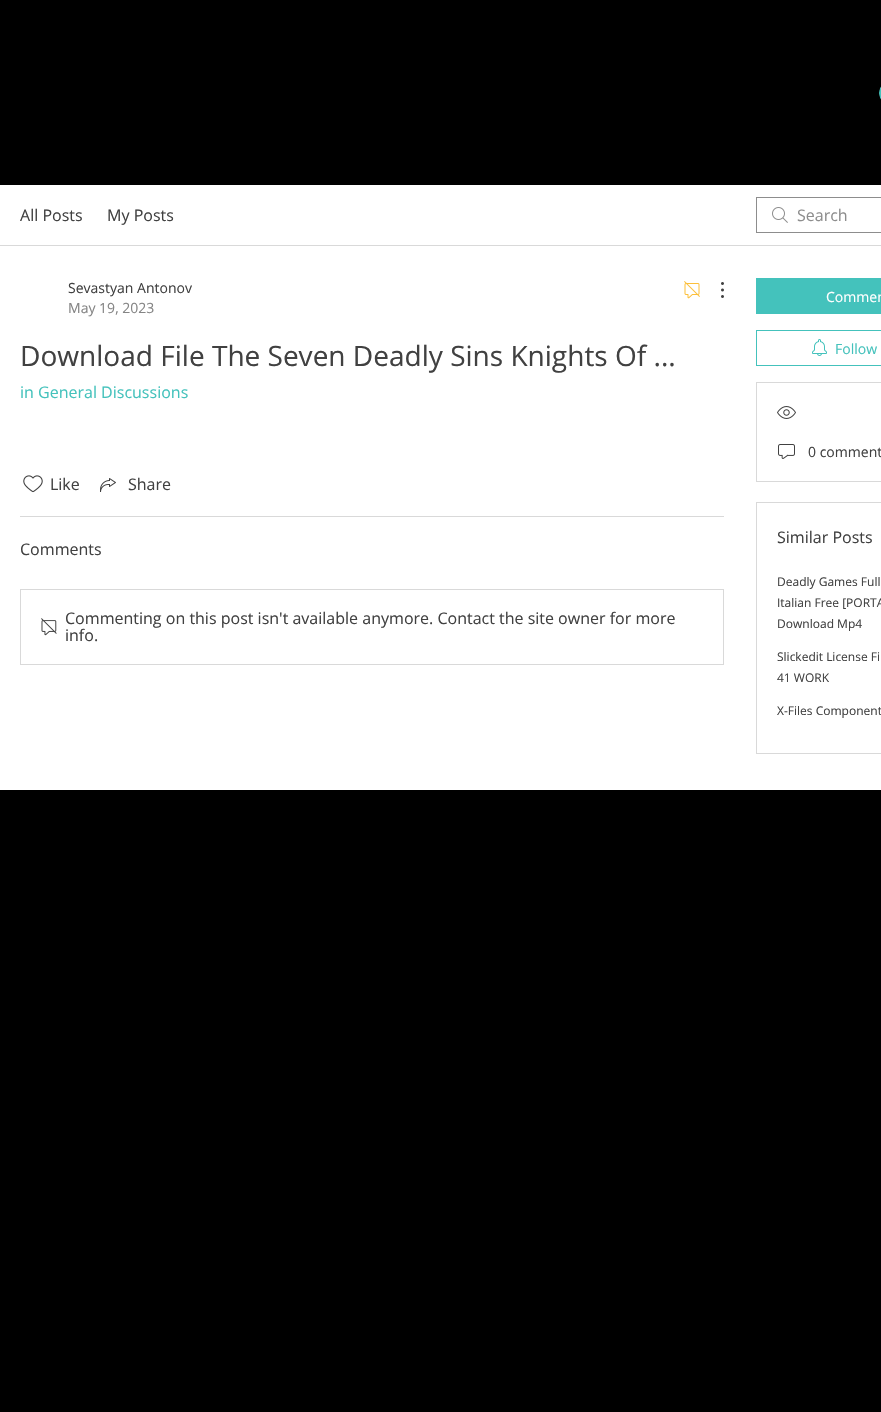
void draw(SkCanvas* canvas) {
	SkPaint paint;
	paint.setAntiAlias(true);
	canvas->clear(0xff000000);
	canvas->drawImageRect(SkImages::DeferredFromEncodedData(SkData::MakeFromFileName("img1.png")), SkRect::MakeXYWH(879, 86, 2, 14), SkSamplingOptions());
	paint.setColor(0xffffffff);
	canvas->drawRect(SkRect::MakeXYWH(0, 185, 881, 605), paint);
	paint.setColor(0xffd9d9d9);
	canvas->drawRect(SkRect::MakeXYWH(0, 245, 881, 1), paint);
	SkFont f1(fontMgr->matchFamilyStyle("Open Sans", SkFontStyle::Normal()), 16);
	f1.setSubpixel(true);
	paint.setColor(0xff414141);
	canvas->drawString("All Posts", 20, 221, f1, paint);
	canvas->drawString("My Posts", 107, 221, f1, paint);
	canvas->drawImageRect(SkImages::DeferredFromEncodedData(SkData::MakeFromFileName("img2.png")), SkRect::MakeXYWH(772, 207, 16, 16), SkSamplingOptions());
	paint.setStroke(true);
	paint.setStrokeWidth(1);
	paint.setColor(0xff8d8d8d);
	canvas->drawRect(SkRect::MakeXYWH(756.5, 197.5, 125, 35), paint);
	paint.setStroke(false);
	canvas->drawString("Search", 797, 221, f1, paint);
	SkFont f2(fontMgr->matchFamilyStyle("Open Sans", SkFontStyle::Normal()), 14);
	f2.setSubpixel(true);
	paint.setColor(0xff414141);
	canvas->drawString("Sevastyan Antonov", 68, 293, f2, paint);
	paint.setColor(0xff858585);
	canvas->drawString("May 19, 2023", 68, 313, f2, paint);
	canvas->drawImageRect(SkImages::DeferredFromEncodedData(SkData::MakeFromFileName("img3.png")), SkRect::MakeXYWH(684, 281, 16, 18), SkSamplingOptions());
	canvas->drawImageRect(SkImages::DeferredFromEncodedData(SkData::MakeFromFileName("img4.png")), SkRect::MakeXYWH(721, 282, 3, 16), SkSamplingOptions());
	SkFont f3(fontMgr->matchFamilyStyle("Open Sans", SkFontStyle::Normal()), 28);
	f3.setSubpixel(true);
	paint.setColor(0xff414141);
	canvas->drawString("Download File The Seven Deadly Sins Knights Of ...", 20, 366, f3, paint);
	paint.setColor(0xff44c2bc);
	canvas->drawString("in General Discussions", 20, 398, f1, paint);
	canvas->drawImageRect(SkImages::DeferredFromEncodedData(SkData::MakeFromFileName("img5.png")), SkRect::MakeXYWH(23, 475, 20, 18), SkSamplingOptions());
	paint.setColor(0xff414141);
	canvas->drawString("Like", 50, 490, f1, paint);
	canvas->drawImageRect(SkImages::DeferredFromEncodedData(SkData::MakeFromFileName("img6.png")), SkRect::MakeXYWH(100, 478, 16, 14), SkSamplingOptions());
	canvas->drawString("Share", 128, 490, f1, paint);
	paint.setColor(0xffd9d9d9);
	canvas->drawRect(SkRect::MakeXYWH(20, 516, 704, 1), paint);
	paint.setColor(0xff414141);
	canvas->drawString("Comments", 20, 555, f1, paint);
	paint.setStroke(true);
	paint.setColor(0xffd9d9d9);
	canvas->drawRect(SkRect::MakeXYWH(20.5, 589.5, 703, 75), paint);
	canvas->drawImageRect(SkImages::DeferredFromEncodedData(SkData::MakeFromFileName("img7.png")), SkRect::MakeXYWH(41, 618, 16, 18), SkSamplingOptions());
	paint.setStroke(false);
	paint.setColor(0xff414141);
	canvas->drawString("Commenting on this post isn't available anymore. Contact the site owner for more", 65, 624, f1, paint);
	canvas->drawString("info.", 65, 641, f1, paint);
	paint.setColor(0xff44c2bc);
	canvas->drawRect(SkRect::MakeXYWH(756, 278, 125, 36), paint);
	paint.setColor(0xffffffff);
	canvas->drawString("Commen", 826, 302, f2, paint);
	paint.setStroke(true);
	paint.setColor(0xff44c2bc);
	canvas->drawRect(SkRect::MakeXYWH(756.5, 330.5, 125, 35), paint);
	canvas->drawImageRect(SkImages::DeferredFromEncodedData(SkData::MakeFromFileName("img8.png")), SkRect::MakeXYWH(812, 339, 15, 17), SkSamplingOptions());
	paint.setStroke(false);
	canvas->drawString("Follow", 835, 354, f2, paint);
	paint.setStroke(true);
	paint.setColor(0xffd9d9d9);
	canvas->drawRect(SkRect::MakeXYWH(756.5, 382.5, 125, 99), paint);
	canvas->drawImageRect(SkImages::DeferredFromEncodedData(SkData::MakeFromFileName("img9.png")), SkRect::MakeXYWH(777, 406, 19, 13), SkSamplingOptions());
	canvas->drawImageRect(SkImages::DeferredFromEncodedData(SkData::MakeFromFileName("img10.png")), SkRect::MakeXYWH(778, 444, 17, 15), SkSamplingOptions());
	paint.setStroke(false);
	paint.setColor(0xff414141);
	canvas->drawString("0 comment", 808, 457, f2, paint);
	paint.setStroke(true);
	paint.setColor(0xffd9d9d9);
	canvas->drawRect(SkRect::MakeXYWH(756.5, 502.5, 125, 251), paint);
	paint.setStroke(false);
	paint.setColor(0xff414141);
	canvas->drawString("Similar Posts", 777, 543, f1, paint);
	SkFont f4(fontMgr->matchFamilyStyle("Open Sans", SkFontStyle::Normal()), 12);
	f4.setSubpixel(true);
	canvas->drawString("Deadly Games Full", 777, 586, f4, paint);
	canvas->drawString("Italian Free [PORTA", 777, 607, f4, paint);
	canvas->drawString("Download Mp4", 777, 628, f4, paint);
	canvas->drawString("Slickedit License Fi", 777, 661, f4, paint);
	canvas->drawString("41 WORK", 777, 682, f4, paint);
	canvas->drawString("X-Files Component", 777, 715, f4, paint);
}
